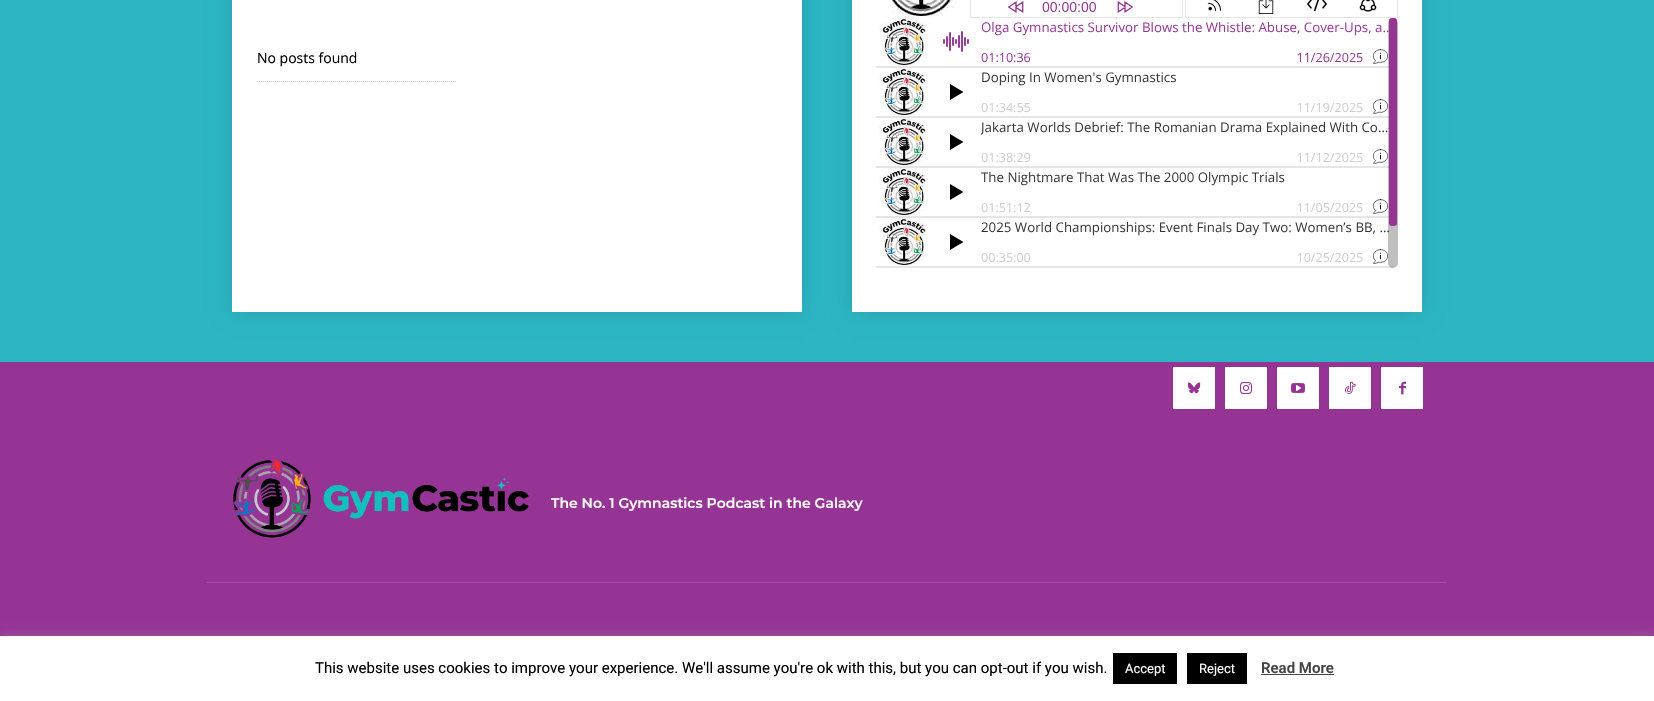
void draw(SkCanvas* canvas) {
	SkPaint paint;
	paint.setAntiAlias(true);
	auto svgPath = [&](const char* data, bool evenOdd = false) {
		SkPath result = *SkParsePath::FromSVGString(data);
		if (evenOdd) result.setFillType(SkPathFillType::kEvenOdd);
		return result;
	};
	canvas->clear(0xff2db5c4);
	paint.setColor(0x1c000000);
	paint.setMaskFilter(SkMaskFilter::MakeBlur(kNormal_SkBlurStyle, 10));
	canvas->drawRect(SkRect::MakeXYWH(232, -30, 570, 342), paint);
	paint.setMaskFilter(nullptr);
	paint.setColor(0xffffffff);
	canvas->drawRect(SkRect::MakeXYWH(232, 0, 570, 312), paint);
	paint.setStroke(true);
	paint.setStrokeWidth(1);
	paint.setColor(0xffcccccc);
	paint.setPathEffect(SkDashPathEffect::Make({{1, 1}}, 0));
	canvas->drawPath(svgPath("M257 81.5H456"), paint);
	paint.setPathEffect(nullptr);
	SkFont f1(fontMgr->matchFamilyStyle("Open Sans", SkFontStyle::Normal()), 14);
	f1.setSubpixel(true);
	paint.setStroke(false);
	paint.setColor(0xff000000);
	canvas->drawString("No posts found", 257, 63, f1, paint);
	paint.setColor(0x1c000000);
	paint.setMaskFilter(SkMaskFilter::MakeBlur(kNormal_SkBlurStyle, 10));
	canvas->drawRect(SkRect::MakeXYWH(852, -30, 570, 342), paint);
	paint.setMaskFilter(nullptr);
	paint.setColor(0xffffffff);
	canvas->drawRect(SkRect::MakeXYWH(852, 0, 570, 312), paint);
	canvas->drawImageRect(SkImages::DeferredFromEncodedData(SkData::MakeFromFileName("img1.png")), SkRect::MakeXYWH(876, 0, 522, 268), SkSamplingOptions());
	paint.setColor(0xff953495);
	canvas->drawRect(SkRect::MakeXYWH(0, 362, 1654, 274), paint);
	paint.setColor(0xffffffff);
	canvas->drawRect(SkRect::MakeXYWH(1173, 367, 42, 42), paint);
	canvas->drawImageRect(SkImages::DeferredFromEncodedData(SkData::MakeFromFileName("img2.png")), SkRect::MakeXYWH(1187, 382, 14, 12), SkSamplingOptions());
	canvas->drawRect(SkRect::MakeXYWH(1225, 367, 42, 42), paint);
	canvas->drawImageRect(SkImages::DeferredFromEncodedData(SkData::MakeFromFileName("img3.png")), SkRect::MakeXYWH(1240, 382, 12, 12), SkSamplingOptions());
	canvas->drawRect(SkRect::MakeXYWH(1277, 367, 42, 42), paint);
	canvas->drawImageRect(SkImages::DeferredFromEncodedData(SkData::MakeFromFileName("img4.png")), SkRect::MakeXYWH(1291, 383, 14, 10), SkSamplingOptions());
	canvas->drawRect(SkRect::MakeXYWH(1329, 367, 42, 42), paint);
	canvas->drawImageRect(SkImages::DeferredFromEncodedData(SkData::MakeFromFileName("img5.png")), SkRect::MakeXYWH(1345, 381, 11, 13), SkSamplingOptions());
	canvas->drawRect(SkRect::MakeXYWH(1381, 367, 42, 42), paint);
	canvas->drawImageRect(SkImages::DeferredFromEncodedData(SkData::MakeFromFileName("img6.png")), SkRect::MakeXYWH(1399, 381, 7, 14), SkSamplingOptions());
	paint.setColor(0xffa552a5);
	canvas->drawRect(SkRect::MakeXYWH(207, 582, 1240, 1), paint);
	canvas->drawImageRect(SkImages::DeferredFromEncodedData(SkData::MakeFromFileName("img7.png")), SkRect::MakeXYWH(233, 459, 296, 79), SkSamplingOptions());
	SkFont f2(fontMgr->matchFamilyStyle("Montserrat", SkFontStyle(600, SkFontStyle::kNormal_Width, SkFontStyle::kUpright_Slant)), 14);
	f2.setSubpixel(true);
	paint.setColor(0xffffffff);
	canvas->drawString("The No. 1 Gymnastics Podcast in the Galaxy", 551, 508, f2, paint);
	paint.setColor(0x4dacabab);
	paint.setMaskFilter(SkMaskFilter::MakeBlur(kNormal_SkBlurStyle, 5));
	canvas->drawRect(SkRect::MakeXYWH(0, 635, 1654, 65), paint);
	paint.setMaskFilter(nullptr);
	paint.setColor(0xffffffff);
	canvas->drawRect(SkRect::MakeXYWH(0, 636, 1654, 65), paint);
	SkFont f3(fontMgr->matchFamilyStyle("Roboto", SkFontStyle::Normal()), 15);
	f3.setSubpixel(true);
	paint.setColor(0xff000000);
	canvas->drawString("This website uses cookies to improve your experience. We'll assume you're ok with this, but you can opt-out if you wish.", 315, 673, f3, paint);
	canvas->drawRect(SkRect::MakeXYWH(1113, 653, 64, 31), paint);
	SkFont f4(fontMgr->matchFamilyStyle("Roboto", SkFontStyle::Normal()), 13);
	f4.setSubpixel(true);
	paint.setColor(0xffffffff);
	canvas->drawString("Accept", 1125, 673, f4, paint);
	paint.setColor(0xff000000);
	canvas->drawRect(SkRect::MakeXYWH(1187, 653, 60, 31), paint);
	paint.setColor(0xffffffff);
	canvas->drawString("Reject", 1199, 673, f4, paint);
	SkFont f5(fontMgr->matchFamilyStyle("Roboto", SkFontStyle(600, SkFontStyle::kNormal_Width, SkFontStyle::kUpright_Slant)), 15);
	f5.setSubpixel(true);
	paint.setColor(0xff444444);
	canvas->drawString("Read More", 1261, 673, f5, paint);
	canvas->drawRect(SkRect::MakeXYWH(1261, 674, 73, 1), paint);
}
